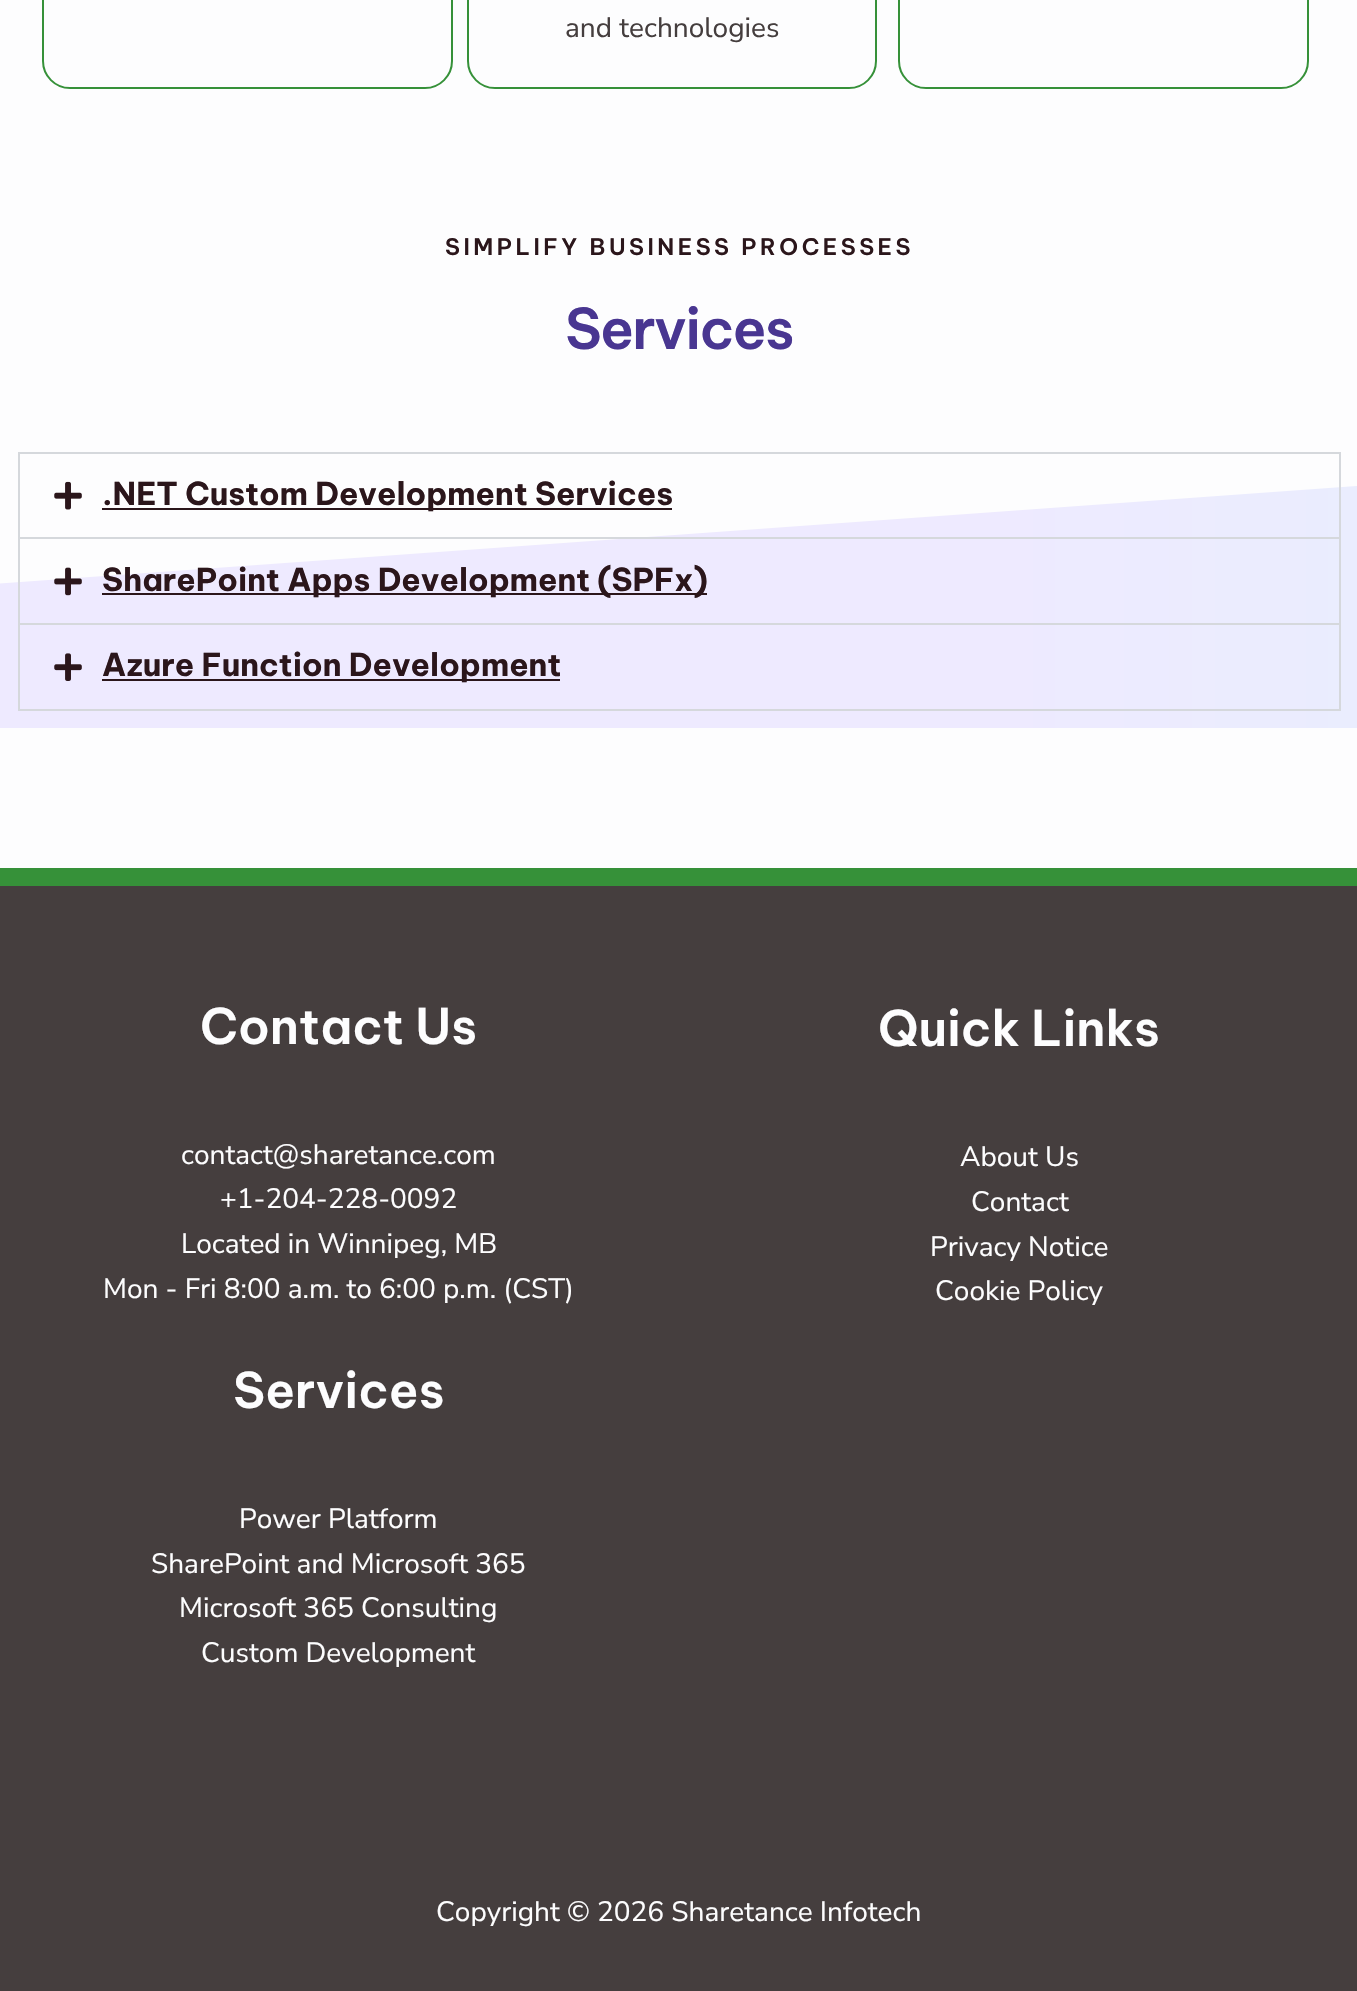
void draw(SkCanvas* canvas) {
	SkPaint paint;
	paint.setAntiAlias(true);
	auto spacedText = [&](const char* s, float x, float y, const SkFont& font, const SkPaint& ink, float letter, float word) {
		std::vector<SkGlyphID> glyphs(font.countText(s, strlen(s), SkTextEncoding::kUTF8));
		std::vector<float> xs(glyphs.size());
		font.textToGlyphs(s, strlen(s), SkTextEncoding::kUTF8, glyphs);
		font.getXPos(glyphs, xs, x);
		float extra = 0;
		for (size_t i = 0; i < glyphs.size(); i++) {
			xs[i] += extra;
			extra += letter + word * (glyphs[i] == font.unicharToGlyph(' '));
		}
		canvas->drawTextBlob(SkTextBlob::MakeFromPosHGlyphs(glyphs, xs, y, font), 0, 0, ink);
	};
	auto svgPath = [&](const char* data, bool evenOdd = false) {
		SkPath result = *SkParsePath::FromSVGString(data);
		if (evenOdd) result.setFillType(SkPathFillType::kEvenOdd);
		return result;
	};
	canvas->clear(0xfffdfdfe);
	paint.setStroke(true);
	paint.setStrokeWidth(2);
	paint.setColor(0xff369139);
	canvas->drawRoundRect(SkRect::MakeXYWH(43, -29, 409, 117), 27, 27, paint);
	canvas->drawRoundRect(SkRect::MakeXYWH(468, -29, 408, 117), 27, 27, paint);
	SkFont f1(fontMgr->matchFamilyStyle("Nunito Sans", SkFontStyle::Normal()), 28);
	f1.setSubpixel(true);
	paint.setStroke(false);
	paint.setColor(0xff453e3e);
	canvas->drawString("and technologies", 565, 37, f1, paint);
	paint.setStroke(true);
	paint.setColor(0xff369139);
	canvas->drawRoundRect(SkRect::MakeXYWH(899, -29, 409, 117), 27, 27, paint);
	SkFont f2(fontMgr->matchFamilyStyle("Be Vietnam Pro", SkFontStyle(600, SkFontStyle::kNormal_Width, SkFontStyle::kUpright_Slant)), 22.75);
	f2.setSubpixel(true);
	paint.setStroke(false);
	paint.setColor(0xff2b161b);
	spacedText("SIMPLIFY BUSINESS PROCESSES", 445, 255, f2, paint, 3.5, 0);
	SkFont f3(fontMgr->matchFamilyStyle("Be Vietnam Pro", SkFontStyle(600, SkFontStyle::kNormal_Width, SkFontStyle::kUpright_Slant)), 56);
	f3.setSubpixel(true);
	paint.setColor(0xff493691);
	spacedText("Services", 565, 349, f3, paint, -1.75, 0);
	canvas->save();
	canvas->clipRect(SkRect::MakeXYWH(0, 434, 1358, 294));
	{
		const SkColor colors[] = {0xffeeeaff, 0xffe2f2fc};
		const float stops[] = {0.61, 1};
		const SkPoint ends[] = {{-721, 1195}, {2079, 1195}};
		paint.setShader(SkGradientShader::MakeLinear(ends, colors, stops, 2, SkTileMode::kClamp));
		paint.setAlpha(255);
	}
	canvas->drawPath(svgPath("M-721 942C-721 957-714 972-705 975L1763 1892C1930 1954 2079 1951 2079 1880V563C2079 492 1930 445 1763 457L-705 634C-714 635-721 648-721 663Z", true), paint);
	canvas->restore();
	paint.setStroke(true);
	paint.setShader(nullptr);
	paint.setColor(0xffd5d8dc);
	canvas->drawRect(SkRect::MakeXYWH(19, 453, 1321, 85), paint);
	canvas->drawImageRect(SkImages::DeferredFromEncodedData(SkData::MakeFromFileName("img1.png")), SkRect::MakeXYWH(54, 481, 28, 29), SkSamplingOptions());
	paint.setStroke(false);
	paint.setColor(0xff2b161b);
	canvas->drawRect(SkRect::MakeXYWH(102, 508, 570, 2), paint);
	SkFont f4(fontMgr->matchFamilyStyle("Be Vietnam Pro", SkFontStyle::Bold()), 31.5);
	f4.setSubpixel(true);
	canvas->drawString(".NET Custom Development Services", 102, 505, f4, paint);
	paint.setColor(0xffd5d8dc);
	canvas->drawRect(SkRect::MakeXYWH(1339, 539, 2, 172), paint);
	canvas->drawRect(SkRect::MakeXYWH(18, 623, 1323, 2), paint);
	canvas->drawRect(SkRect::MakeXYWH(18, 539, 2, 86), paint);
	canvas->drawImageRect(SkImages::DeferredFromEncodedData(SkData::MakeFromFileName("img2.png")), SkRect::MakeXYWH(54, 567, 28, 29), SkSamplingOptions());
	paint.setColor(0xff2b161b);
	canvas->drawRect(SkRect::MakeXYWH(102, 593, 605, 2), paint);
	canvas->drawString("SharePoint Apps Development (SPFx)", 102, 591, f4, paint);
	paint.setColor(0xffd5d8dc);
	canvas->drawRect(SkRect::MakeXYWH(18, 709, 1323, 2), paint);
	canvas->drawRect(SkRect::MakeXYWH(18, 625, 2, 86), paint);
	canvas->drawImageRect(SkImages::DeferredFromEncodedData(SkData::MakeFromFileName("img3.png")), SkRect::MakeXYWH(54, 653, 28, 28), SkSamplingOptions());
	paint.setColor(0xff2b161b);
	canvas->drawRect(SkRect::MakeXYWH(102, 679, 458, 2), paint);
	canvas->drawString("Azure Function Development", 102, 676, f4, paint);
	paint.setColor(0xff453e3e);
	canvas->drawRect(SkRect::MakeXYWH(0, 886, 1357, 1105), paint);
	paint.setColor(0xff369139);
	canvas->drawRect(SkRect::MakeXYWH(0, 868, 1357, 18), paint);
	SkFont f5(fontMgr->matchFamilyStyle("Be Vietnam Pro", SkFontStyle(600, SkFontStyle::kNormal_Width, SkFontStyle::kUpright_Slant)), 49);
	f5.setSubpixel(true);
	paint.setColor(0xfffdfdfe);
	canvas->drawString("Contact Us", 200, 1044, f5, paint);
	canvas->drawString("contact@sharetance.com", 181, 1164, f1, paint);
	canvas->drawString("+1-204-228-0092", 220, 1208, f1, paint);
	canvas->drawString("Located in Winnipeg, MB", 181, 1253, f1, paint);
	canvas->drawString("Mon - Fri 8:00 a.m. to 6:00 p.m. (CST)", 103, 1298, f1, paint);
	canvas->drawString("Quick Links", 878, 1046, f5, paint);
	canvas->drawString("About Us", 960, 1166, f1, paint);
	canvas->drawString("Contact", 971, 1211, f1, paint);
	canvas->drawString("Privacy Notice", 930, 1256, f1, paint);
	canvas->drawString("Cookie Policy", 935, 1300, f1, paint);
	canvas->drawString("Services", 233, 1408, f5, paint);
	canvas->drawString("Power Platform", 239, 1528, f1, paint);
	canvas->drawString("SharePoint and Microsoft 365", 151, 1573, f1, paint);
	canvas->drawString("Microsoft 365 Consulting", 179, 1617, f1, paint);
	canvas->drawString("Custom Development", 201, 1662, f1, paint);
	canvas->drawString("Copyright © 2026 Sharetance Infotech", 436, 1921, f1, paint);
}
